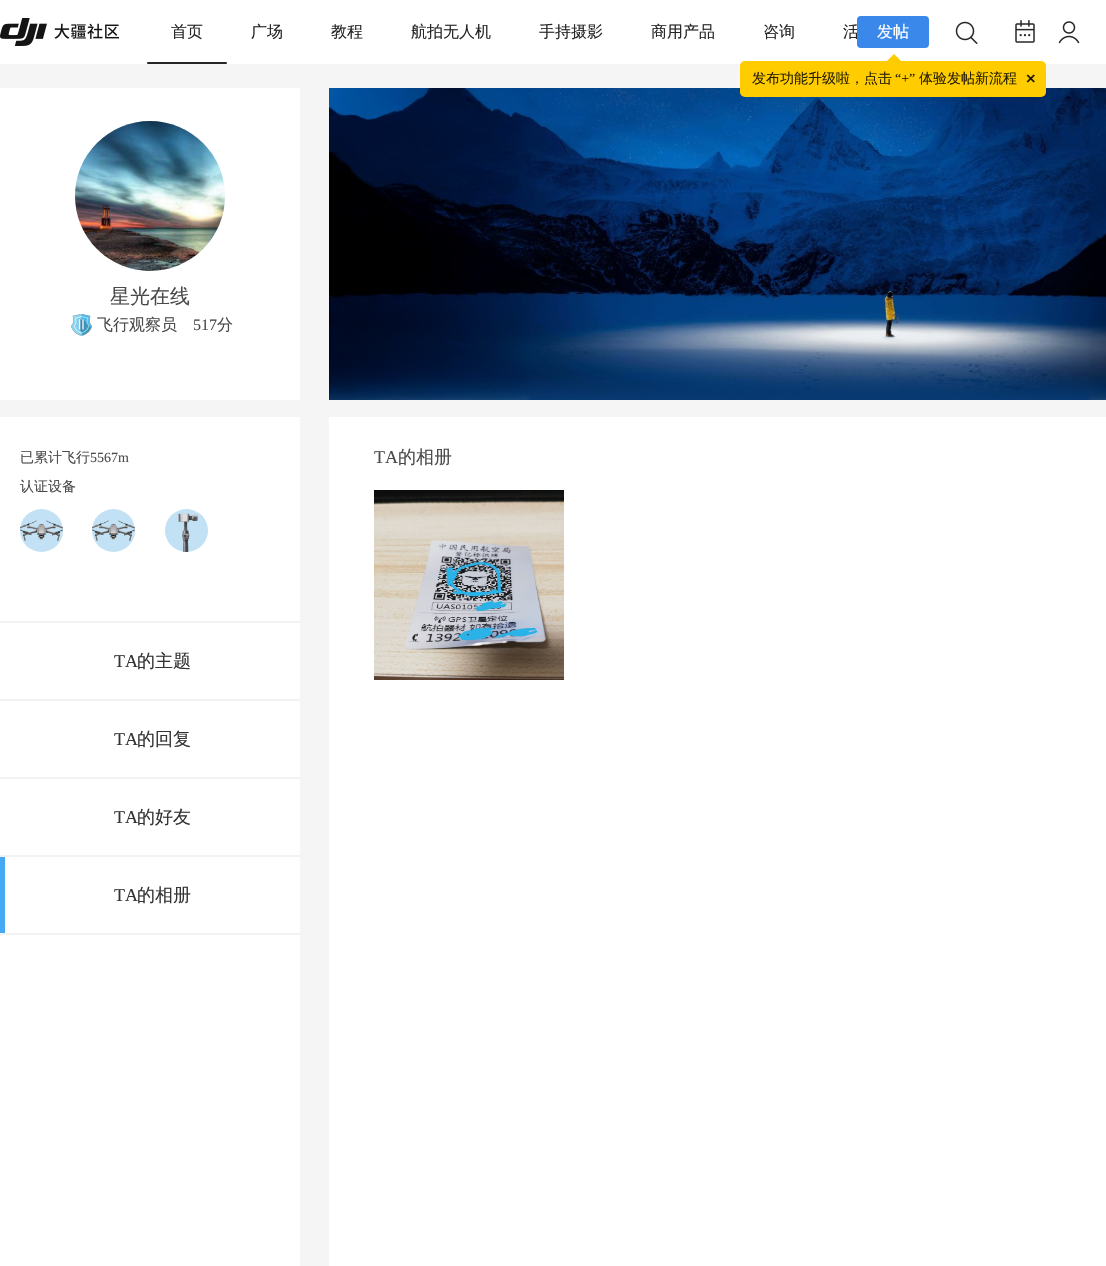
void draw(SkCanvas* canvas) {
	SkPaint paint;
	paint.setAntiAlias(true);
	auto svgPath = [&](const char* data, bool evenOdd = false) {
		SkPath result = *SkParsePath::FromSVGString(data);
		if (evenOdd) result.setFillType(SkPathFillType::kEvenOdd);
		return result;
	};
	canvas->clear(0xfff5f5f5);
	paint.setColor(0xffffffff);
	canvas->drawRect(SkRect::MakeXYWH(0, 0, 1106, 64), paint);
	canvas->drawImageRect(SkImages::DeferredFromEncodedData(SkData::MakeFromFileName("img1.png")), SkRect::MakeXYWH(0, 18, 119, 28), SkSamplingOptions());
	SkFont f1(fontMgr->matchFamilyStyle("WenQuanYi Zen Hei", SkFontStyle(500, SkFontStyle::kNormal_Width, SkFontStyle::kUpright_Slant)), 16);
	f1.setSubpixel(true);
	paint.setColor(0xff262626);
	canvas->drawString("首页", 171, 37, f1, paint);
	canvas->drawRoundRect(SkRect::MakeXYWH(147, 62, 80, 2), 1, 1, paint);
	canvas->drawString("广场", 251, 37, f1, paint);
	canvas->drawString("教程", 331, 37, f1, paint);
	canvas->drawString("航拍无人机", 411, 37, f1, paint);
	canvas->drawString("手持摄影", 539, 37, f1, paint);
	canvas->drawString("商用产品", 651, 37, f1, paint);
	canvas->drawString("咨询", 763, 37, f1, paint);
	canvas->drawString("活", 843, 37, f1, paint);
	canvas->drawImageRect(SkImages::DeferredFromEncodedData(SkData::MakeFromFileName("img2.png")), SkRect::MakeXYWH(955, 21, 23, 23), SkSamplingOptions());
	canvas->drawImageRect(SkImages::DeferredFromEncodedData(SkData::MakeFromFileName("img3.png")), SkRect::MakeXYWH(1015, 20, 20, 23), SkSamplingOptions());
	canvas->drawImageRect(SkImages::DeferredFromEncodedData(SkData::MakeFromFileName("img4.png")), SkRect::MakeXYWH(1058, 21, 22, 23), SkSamplingOptions());
	paint.setColor(0xff3a89ea);
	canvas->drawRoundRect(SkRect::MakeXYWH(857, 16, 72, 32), 4, 4, paint);
	paint.setColor(0xffffffff);
	canvas->drawString("发帖", 877, 37, f1, paint);
	paint.setColor(0xffffcc00);
	canvas->drawPath(svgPath("M902 62H886L894 54Z"), paint);
	canvas->drawImageRect(SkImages::DeferredFromEncodedData(SkData::MakeFromFileName("img7.png")), SkRect::MakeXYWH(329, 88, 777, 312), SkSamplingOptions());
	canvas->drawRoundRect(SkRect::MakeXYWH(740, 61, 306, 36), 5, 5, paint);
	SkFont f2(fontMgr->matchFamilyStyle("WenQuanYi Zen Hei", SkFontStyle(500, SkFontStyle::kNormal_Width, SkFontStyle::kUpright_Slant)), 14);
	f2.setSubpixel(true);
	paint.setColor(0xff261f00);
	canvas->drawString("发布功能升级啦，点击", 752, 83, f2, paint);
	SkFont f3(fontMgr->matchFamilyStyle("Liberation Serif", SkFontStyle::Normal()), 14);
	f3.setSubpixel(true);
	canvas->drawString("“+”", 895, 83, f3, paint);
	canvas->drawString("体验发帖新流程", 919, 83, f2, paint);
	canvas->drawPath(svgPath("M1028 74.5L1035 81.5L1033.5 82.5L1026.5 75.5Z"), paint);
	paint.setColor(0xd9000000);
	canvas->drawPath(svgPath("M1033.5 74.5L1035 75.5L1028 82.5L1026.5 81.5Z"), paint);
	paint.setColor(0xffffffff);
	canvas->drawRect(SkRect::MakeXYWH(0, 88, 300, 312), paint);
	canvas->drawImageRect(SkImages::DeferredFromEncodedData(SkData::MakeFromFileName("img5.png")), SkRect::MakeXYWH(75, 121, 150, 150), SkSamplingOptions());
	SkFont f4(fontMgr->matchFamilyStyle("WenQuanYi Zen Hei", SkFontStyle(500, SkFontStyle::kNormal_Width, SkFontStyle::kUpright_Slant)), 20);
	f4.setSubpixel(true);
	paint.setColor(0xff4a4a4a);
	canvas->drawString("星光在线", 110, 303, f4, paint);
	canvas->drawImageRect(SkImages::DeferredFromEncodedData(SkData::MakeFromFileName("img6.png")), SkRect::MakeXYWH(71, 314, 21, 22), SkSamplingOptions());
	canvas->drawString("飞行观察员", 97, 330, f1, paint);
	SkFont f5(fontMgr->matchFamilyStyle("Liberation Serif", SkFontStyle::Normal()), 16);
	f5.setSubpixel(true);
	canvas->drawString("517", 193, 330, f5, paint);
	canvas->drawString("分", 217, 330, f1, paint);
	paint.setColor(0xffffffff);
	canvas->drawRect(SkRect::MakeXYWH(0, 417, 300, 849), paint);
	paint.setColor(0xfff2f2f2);
	canvas->drawRect(SkRect::MakeXYWH(0, 621, 300, 2), paint);
	paint.setColor(0xff4a4a4a);
	canvas->drawString("已累计飞行", 20, 462, f2, paint);
	canvas->drawString("5567m", 90, 462, f3, paint);
	canvas->drawString("认证设备", 20, 491, f2, paint);
	paint.setColor(0xffc2e1f5);
	canvas->drawCircle(41.5, 530.5, 21.5, paint);
	canvas->drawImageRect(SkImages::DeferredFromEncodedData(SkData::MakeFromFileName("img8.png")), SkRect::MakeXYWH(20, 520, 43, 21), SkSamplingOptions());
	canvas->drawCircle(113.5, 530.5, 21.5, paint);
	canvas->drawImageRect(SkImages::DeferredFromEncodedData(SkData::MakeFromFileName("img9.png")), SkRect::MakeXYWH(92, 520, 43, 21), SkSamplingOptions());
	canvas->drawCircle(186.5, 530.5, 21.5, paint);
	canvas->drawImageRect(SkImages::DeferredFromEncodedData(SkData::MakeFromFileName("img10.png")), SkRect::MakeXYWH(178, 513, 20, 39), SkSamplingOptions());
	paint.setColor(0xfff2f2f2);
	canvas->drawRect(SkRect::MakeXYWH(0, 699, 300, 2), paint);
	SkFont f6(fontMgr->matchFamilyStyle("Liberation Serif", SkFontStyle::Normal()), 18);
	f6.setSubpixel(true);
	paint.setColor(0xff333333);
	canvas->drawString("TA", 114, 667, f6, paint);
	SkFont f7(fontMgr->matchFamilyStyle("WenQuanYi Zen Hei", SkFontStyle(500, SkFontStyle::kNormal_Width, SkFontStyle::kUpright_Slant)), 18);
	f7.setSubpixel(true);
	canvas->drawString("的主题", 137, 667, f7, paint);
	paint.setColor(0xfff2f2f2);
	canvas->drawRect(SkRect::MakeXYWH(0, 777, 300, 2), paint);
	paint.setColor(0xff333333);
	canvas->drawString("TA", 114, 745, f6, paint);
	canvas->drawString("的回复", 137, 745, f7, paint);
	paint.setColor(0xfff2f2f2);
	canvas->drawRect(SkRect::MakeXYWH(0, 855, 300, 2), paint);
	paint.setColor(0xff333333);
	canvas->drawString("TA", 114, 823, f6, paint);
	canvas->drawString("的好友", 137, 823, f7, paint);
	paint.setColor(0xfff2f2f2);
	canvas->drawRect(SkRect::MakeXYWH(0, 933, 300, 2), paint);
	paint.setColor(0xff44a8f2);
	canvas->drawRect(SkRect::MakeXYWH(0, 857, 5, 76), paint);
	paint.setColor(0xff333333);
	canvas->drawString("TA", 114, 901, f6, paint);
	canvas->drawString("的相册", 137, 901, f7, paint);
	paint.setColor(0xffffffff);
	canvas->drawRect(SkRect::MakeXYWH(329, 417, 777, 849), paint);
	paint.setColor(0xff4a4a4a);
	canvas->drawString("TA", 374, 463, f6, paint);
	canvas->drawString("的相册", 398, 463, f7, paint);
	canvas->drawImageRect(SkImages::DeferredFromEncodedData(SkData::MakeFromFileName("img11.png")), SkRect::MakeXYWH(374, 490, 190, 190), SkSamplingOptions());
}
